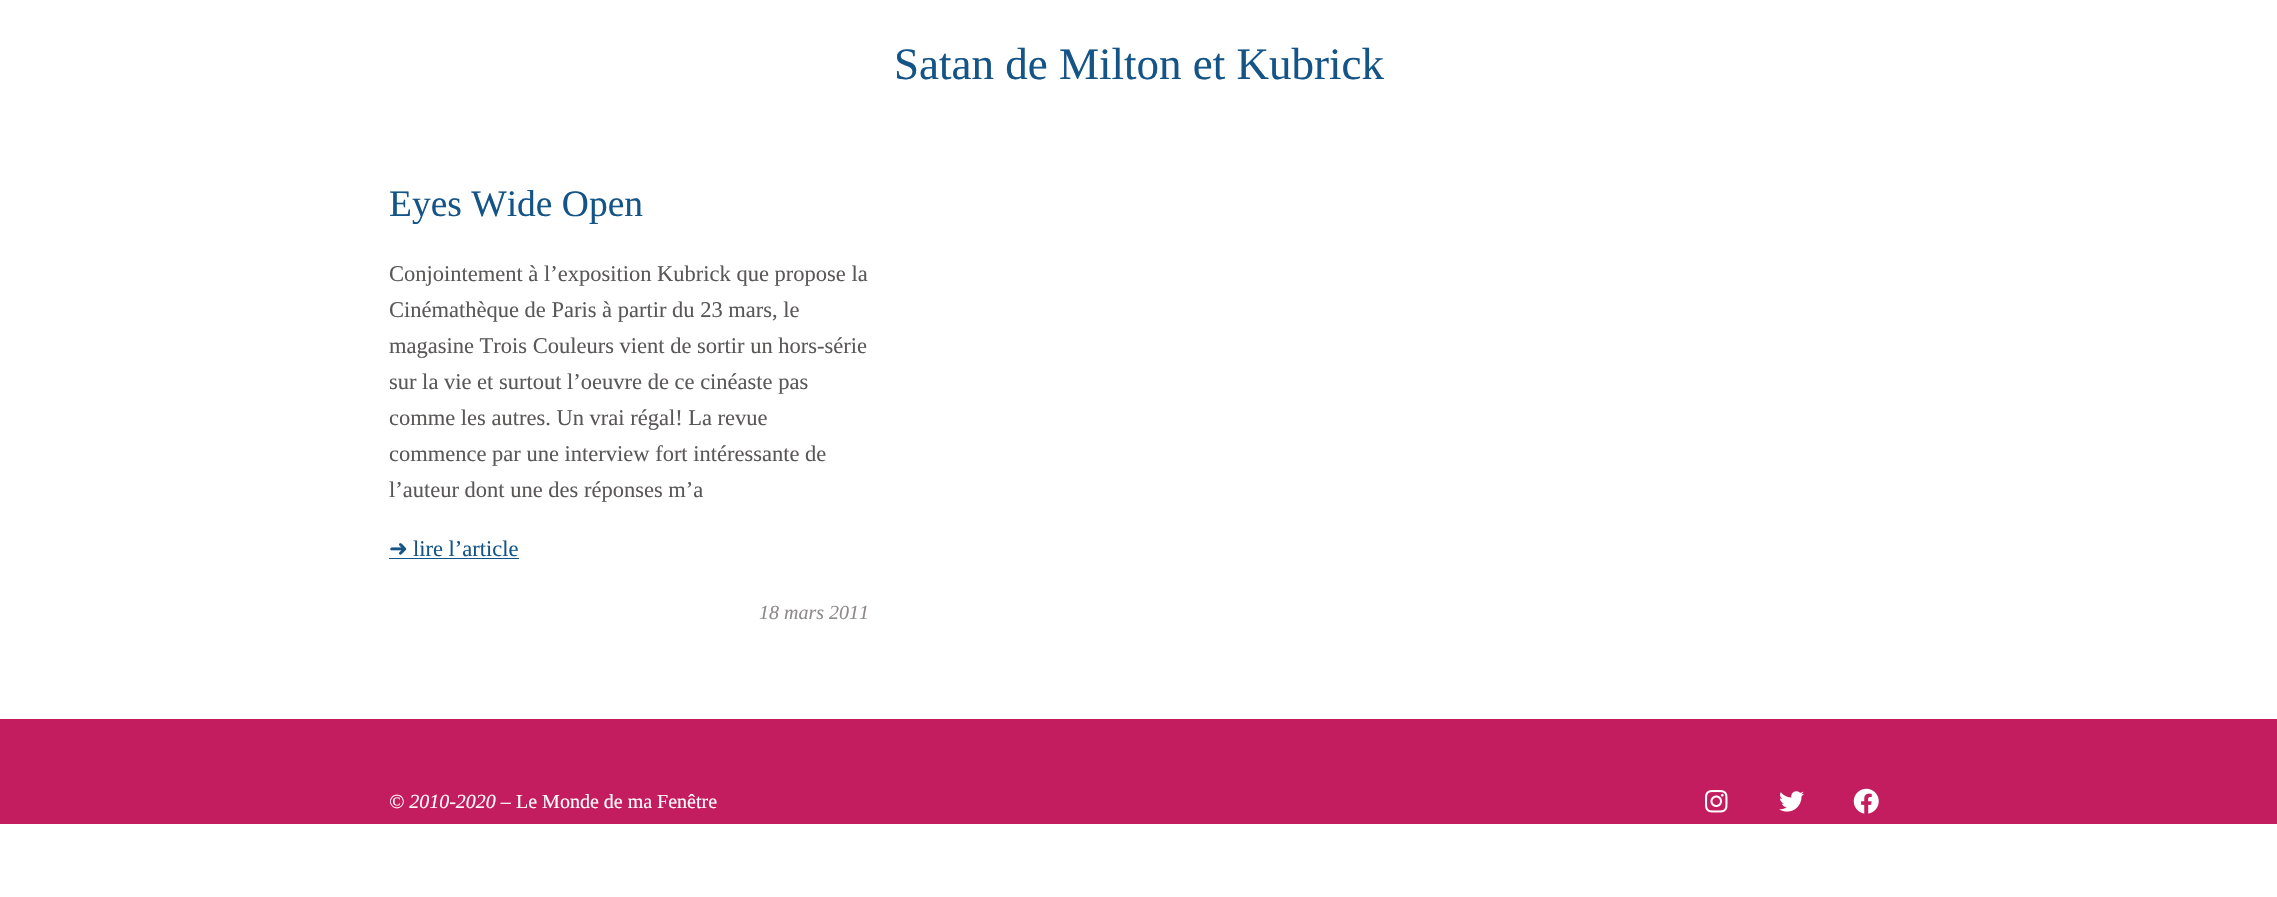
void draw(SkCanvas* canvas) {
	SkPaint paint;
	paint.setAntiAlias(true);
	canvas->clear(0xffffffff);
	SkFont f1(fontMgr->matchFamilyStyle("Liberation Serif", SkFontStyle::Normal()), 45);
	f1.setSubpixel(true);
	paint.setColor(0xff145487);
	canvas->drawString("Satan de Milton et Kubrick", 894, 79, f1, paint);
	SkFont f2(fontMgr->matchFamilyStyle("Liberation Serif", SkFontStyle::Normal()), 37.5);
	f2.setSubpixel(true);
	canvas->drawString("Eyes Wide Open", 389, 216, f2, paint);
	SkFont f3(fontMgr->matchFamilyStyle("Liberation Serif", SkFontStyle::Normal()), 22.5);
	f3.setSubpixel(true);
	paint.setColor(0xff5a5757);
	canvas->drawString("Conjointement à l’exposition Kubrick que propose la", 389, 281, f3, paint);
	canvas->drawString("Cinémathèque de Paris à partir du 23 mars, le", 389, 317, f3, paint);
	canvas->drawString("magasine Trois Couleurs vient de sortir un hors-série", 389, 353, f3, paint);
	canvas->drawString("sur la vie et surtout l’oeuvre de ce cinéaste pas", 389, 389, f3, paint);
	canvas->drawString("comme les autres. Un vrai régal! La revue", 389, 425, f3, paint);
	canvas->drawString("commence par une interview fort intéressante de", 389, 461, f3, paint);
	canvas->drawString("l’auteur dont une des réponses m’a", 389, 497, f3, paint);
	SkFont f4(fontMgr->matchFamilyStyle("DejaVu Sans", SkFontStyle::Normal()), 22.5);
	f4.setSubpixel(true);
	paint.setColor(0xff145487);
	canvas->drawString("➜", 389, 556, f4, paint);
	canvas->drawRect(SkRect::MakeXYWH(389, 558, 130, 1), paint);
	canvas->drawString("lire l’article", 413, 556, f3, paint);
	SkFont f5(fontMgr->matchFamilyStyle("Liberation Serif", SkFontStyle::Italic()), 20);
	f5.setSubpixel(true);
	paint.setColor(0xff8e8a8a);
	canvas->drawString("18 mars 2011", 759, 619, f5, paint);
	paint.setColor(0xffc41d5f);
	canvas->drawRect(SkRect::MakeXYWH(0, 719, 2277, 105), paint);
	paint.setColor(0xffffffff);
	canvas->drawString("© 2010-2020 –", 389, 808, f5, paint);
	SkFont f6(fontMgr->matchFamilyStyle("Liberation Serif", SkFontStyle::Normal()), 20);
	f6.setSubpixel(true);
	canvas->drawString("Le Monde de ma Fenêtre", 516, 808, f6, paint);
	canvas->drawImageRect(SkImages::DeferredFromEncodedData(SkData::MakeFromFileName("img1.png")), SkRect::MakeXYWH(1705, 790, 23, 23), SkSamplingOptions());
	canvas->drawImageRect(SkImages::DeferredFromEncodedData(SkData::MakeFromFileName("img2.png")), SkRect::MakeXYWH(1779, 791, 25, 21), SkSamplingOptions());
	canvas->drawImageRect(SkImages::DeferredFromEncodedData(SkData::MakeFromFileName("img3.png")), SkRect::MakeXYWH(1853, 788, 26, 26), SkSamplingOptions());
}
